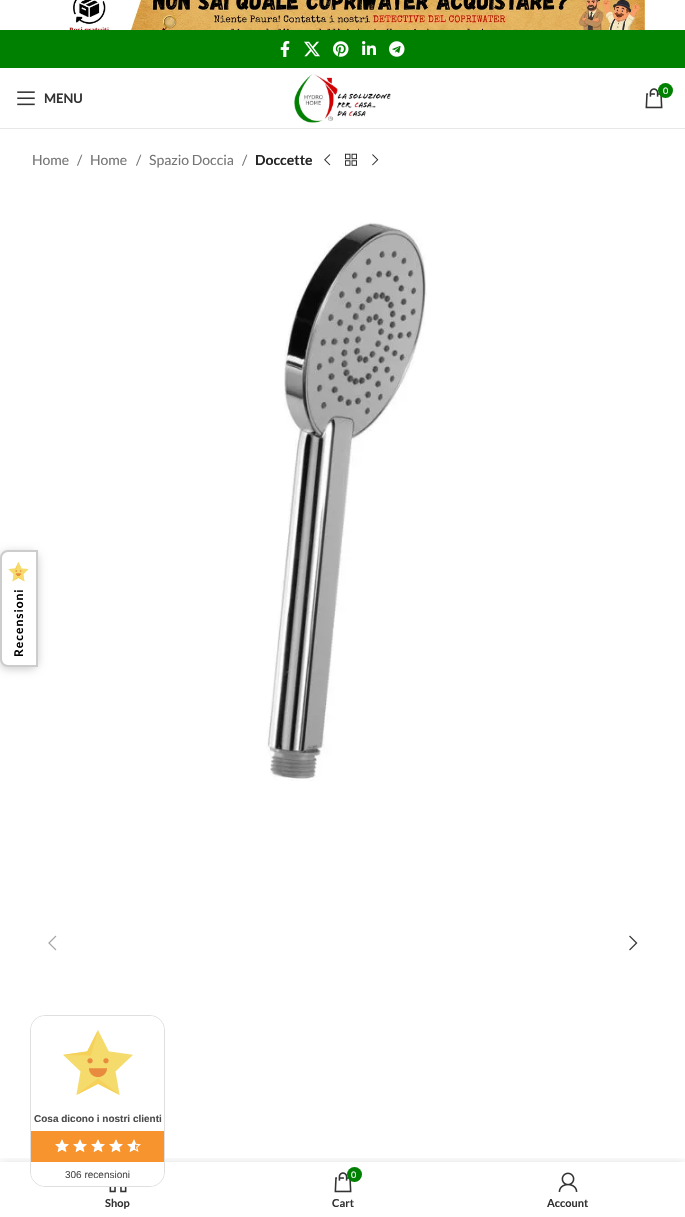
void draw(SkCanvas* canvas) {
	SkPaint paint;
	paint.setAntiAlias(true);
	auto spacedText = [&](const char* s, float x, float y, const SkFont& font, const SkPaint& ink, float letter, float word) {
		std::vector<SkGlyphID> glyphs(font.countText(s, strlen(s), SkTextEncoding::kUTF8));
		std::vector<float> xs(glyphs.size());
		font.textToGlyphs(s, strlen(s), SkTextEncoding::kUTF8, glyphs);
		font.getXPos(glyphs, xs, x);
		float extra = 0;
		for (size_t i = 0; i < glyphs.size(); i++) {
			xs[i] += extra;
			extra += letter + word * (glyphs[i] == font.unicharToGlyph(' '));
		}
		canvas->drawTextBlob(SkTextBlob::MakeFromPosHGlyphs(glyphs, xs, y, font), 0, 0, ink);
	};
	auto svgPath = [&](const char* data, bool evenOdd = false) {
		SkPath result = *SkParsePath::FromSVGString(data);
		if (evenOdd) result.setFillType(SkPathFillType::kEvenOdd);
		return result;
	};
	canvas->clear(0xffffffff);
	canvas->drawImageRect(SkImages::DeferredFromEncodedData(SkData::MakeFromFileName("img1.png")), SkRect::MakeXYWH(69, 0, 576, 30), SkSamplingOptions());
	paint.setColor(0xff008001);
	canvas->drawRect(SkRect::MakeXYWH(0, 30, 685, 38), paint);
	canvas->drawImageRect(SkImages::DeferredFromEncodedData(SkData::MakeFromFileName("img2.png")), SkRect::MakeXYWH(280, 41, 10, 16), SkSamplingOptions());
	canvas->drawImageRect(SkImages::DeferredFromEncodedData(SkData::MakeFromFileName("img3.png")), SkRect::MakeXYWH(304, 41, 16, 16), SkSamplingOptions());
	canvas->drawImageRect(SkImages::DeferredFromEncodedData(SkData::MakeFromFileName("img4.png")), SkRect::MakeXYWH(333, 41, 16, 16), SkSamplingOptions());
	canvas->drawImageRect(SkImages::DeferredFromEncodedData(SkData::MakeFromFileName("img5.png")), SkRect::MakeXYWH(362, 41, 14, 14), SkSamplingOptions());
	canvas->drawImageRect(SkImages::DeferredFromEncodedData(SkData::MakeFromFileName("img6.png")), SkRect::MakeXYWH(389, 41, 16, 16), SkSamplingOptions());
	paint.setColor(0xffe8e8e8);
	canvas->drawRect(SkRect::MakeXYWH(0, 128, 685, 1), paint);
	canvas->drawImageRect(SkImages::DeferredFromEncodedData(SkData::MakeFromFileName("img7.png")), SkRect::MakeXYWH(294, 74, 97, 49), SkSamplingOptions());
	canvas->drawImageRect(SkImages::DeferredFromEncodedData(SkData::MakeFromFileName("img8.png")), SkRect::MakeXYWH(645, 88, 18, 21), SkSamplingOptions());
	paint.setColor(0xff008001);
	canvas->drawCircle(665.5, 90.5, 7.5, paint);
	SkFont f1(fontMgr->matchFamilyStyle("Lato", SkFontStyle::Normal()), 9);
	f1.setSubpixel(true);
	paint.setColor(0xffffffff);
	canvas->drawString("0", 663, 94, f1, paint);
	canvas->drawImageRect(SkImages::DeferredFromEncodedData(SkData::MakeFromFileName("img9.png")), SkRect::MakeXYWH(17, 91, 18, 15), SkSamplingOptions());
	SkFont f2(fontMgr->matchFamilyStyle("Lato", SkFontStyle::Bold()), 13);
	f2.setSubpixel(true);
	paint.setColor(0xff333333);
	canvas->drawString("MENU", 44, 103, f2, paint);
	SkFont f3(fontMgr->matchFamilyStyle("Lato", SkFontStyle::Normal()), 14);
	f3.setSubpixel(true);
	paint.setColor(0xff767676);
	canvas->drawString("Home", 32, 165, f3, paint);
	canvas->drawString("/", 77, 165, f3, paint);
	canvas->drawString("Home", 90, 165, f3, paint);
	canvas->drawString("/", 136, 165, f3, paint);
	canvas->drawString("Spazio Doccia", 149, 165, f3, paint);
	canvas->drawString("/", 242, 165, f3, paint);
	SkFont f4(fontMgr->matchFamilyStyle("Lato", SkFontStyle::Bold()), 14);
	f4.setSubpixel(true);
	paint.setColor(0xff242424);
	canvas->drawString("Doccette", 255, 165, f4, paint);
	canvas->drawImageRect(SkImages::DeferredFromEncodedData(SkData::MakeFromFileName("img10.png")), SkRect::MakeXYWH(324, 154, 7, 12), SkSamplingOptions());
	canvas->drawImageRect(SkImages::DeferredFromEncodedData(SkData::MakeFromFileName("img11.png")), SkRect::MakeXYWH(345, 153, 12, 13), SkSamplingOptions());
	canvas->drawImageRect(SkImages::DeferredFromEncodedData(SkData::MakeFromFileName("img12.png")), SkRect::MakeXYWH(372, 154, 7, 12), SkSamplingOptions());
	canvas->drawImageRect(SkImages::DeferredFromEncodedData(SkData::MakeFromFileName("img13.png")), SkRect::MakeXYWH(266, 222, 161, 559), SkSamplingOptions());
	canvas->drawImageRect(SkImages::DeferredFromEncodedData(SkData::MakeFromFileName("img14.png")), SkRect::MakeXYWH(48, 935, 9, 16), SkSamplingOptions());
	canvas->drawImageRect(SkImages::DeferredFromEncodedData(SkData::MakeFromFileName("img15.png")), SkRect::MakeXYWH(629, 935, 9, 16), SkSamplingOptions());
	paint.setColor(0x33000000);
	paint.setMaskFilter(SkMaskFilter::MakeBlur(kNormal_SkBlurStyle, 4));
	canvas->drawRoundRect(SkRect::MakeXYWH(0, 552, 38, 117), 8, 8, paint);
	paint.setMaskFilter(nullptr);
	paint.setColor(0xffffffff);
	canvas->drawPath(svgPath("M8 551H37V666H8C4 666 1 663 1 659V558C1 554 4 551 8 551Z"), paint);
	paint.setStroke(true);
	paint.setStrokeWidth(2);
	paint.setColor(0xffcccccc);
	canvas->drawPath(svgPath("M8 551H37V666H8C4 666 1 663 1 659V558C1 554 4 551 8 551Z"), paint);
	canvas->drawImageRect(SkImages::DeferredFromEncodedData(SkData::MakeFromFileName("img16.png")), SkRect::MakeXYWH(8, 561, 21, 21), SkSamplingOptions());
	SkFont f5(fontMgr->matchFamilyStyle("Lato", SkFontStyle::Bold()), 12);
	f5.setSubpixel(true);
	paint.setStroke(false);
	paint.setColor(0xff000000);
	canvas->save();
	canvas->rotate(-90, 23, 657);
	spacedText("Recensioni", 23, 657, f5, paint, 1, 0);
	canvas->restore();
	canvas->save();
	canvas->clipRect(SkRect::MakeXYWH(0, 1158, 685, 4));
	paint.setColor(0x1f000000);
	paint.setMaskFilter(SkMaskFilter::MakeBlur(kNormal_SkBlurStyle, 4.5));
	canvas->drawRect(SkRect::MakeXYWH(0, 1162, 685, 55), paint);
	paint.setMaskFilter(nullptr);
	canvas->restore();
	paint.setStroke(true);
	paint.setStrokeWidth(1);
	paint.setColor(0xffdfdfdf);
	canvas->drawRoundRect(SkRect::MakeXYWH(30.5, 1015.5, 134, 171), 14.5, 14.5, paint);
	paint.setStroke(false);
	paint.setColor(0xffffffff);
	canvas->drawPath(svgPath("M45 1016H150C157.5 1016 164 1022.5 164 1030V1131H31V1030C31 1022.5 37.5 1016 45 1016Z"), paint);
	paint.setColor(0xfff8942d);
	canvas->drawRect(SkRect::MakeXYWH(31, 1131, 133, 31), paint);
	paint.setColor(0xffffffff);
	canvas->drawPath(svgPath("M31 1162H164V1172C164 1179.5 157.5 1186 150 1186H45C37.5 1186 31 1179.5 31 1172Z"), paint);
	canvas->drawImageRect(SkImages::DeferredFromEncodedData(SkData::MakeFromFileName("img17.png")), SkRect::MakeXYWH(63, 1030, 70, 65), SkSamplingOptions());
	SkFont f6(fontMgr->matchFamilyStyle("Liberation Sans", SkFontStyle::Bold()), 10);
	f6.setSubpixel(true);
	paint.setColor(0xff4c4c4c);
	canvas->drawString("Cosa dicono i nostri clienti", 34, 1122, f6, paint);
	canvas->drawImageRect(SkImages::DeferredFromEncodedData(SkData::MakeFromFileName("img18.png")), SkRect::MakeXYWH(55, 1139, 14, 13), SkSamplingOptions());
	canvas->drawImageRect(SkImages::DeferredFromEncodedData(SkData::MakeFromFileName("img19.png")), SkRect::MakeXYWH(55, 1139, 14, 13), SkSamplingOptions());
	canvas->drawImageRect(SkImages::DeferredFromEncodedData(SkData::MakeFromFileName("img18.png")), SkRect::MakeXYWH(73, 1139, 14, 13), SkSamplingOptions());
	canvas->drawImageRect(SkImages::DeferredFromEncodedData(SkData::MakeFromFileName("img19.png")), SkRect::MakeXYWH(73, 1139, 14, 13), SkSamplingOptions());
	canvas->drawImageRect(SkImages::DeferredFromEncodedData(SkData::MakeFromFileName("img18.png")), SkRect::MakeXYWH(91, 1139, 14, 13), SkSamplingOptions());
	canvas->drawImageRect(SkImages::DeferredFromEncodedData(SkData::MakeFromFileName("img19.png")), SkRect::MakeXYWH(91, 1139, 14, 13), SkSamplingOptions());
	canvas->drawImageRect(SkImages::DeferredFromEncodedData(SkData::MakeFromFileName("img18.png")), SkRect::MakeXYWH(109, 1139, 14, 13), SkSamplingOptions());
	canvas->drawImageRect(SkImages::DeferredFromEncodedData(SkData::MakeFromFileName("img19.png")), SkRect::MakeXYWH(109, 1139, 14, 13), SkSamplingOptions());
	canvas->drawImageRect(SkImages::DeferredFromEncodedData(SkData::MakeFromFileName("img18.png")), SkRect::MakeXYWH(127, 1139, 14, 13), SkSamplingOptions());
	canvas->drawImageRect(SkImages::DeferredFromEncodedData(SkData::MakeFromFileName("img20.png")), SkRect::MakeXYWH(127, 1139, 8, 13), SkSamplingOptions());
	SkFont f7(fontMgr->matchFamilyStyle("Liberation Sans", SkFontStyle::Normal()), 10);
	f7.setSubpixel(true);
	canvas->drawString("306 recensioni", 65, 1178, f7, paint);
	canvas->drawImageRect(SkImages::DeferredFromEncodedData(SkData::MakeFromFileName("img21.png")), SkRect::MakeXYWH(109, 1187, 18, 6), SkSamplingOptions());
	SkFont f8(fontMgr->matchFamilyStyle("Lato", SkFontStyle::Bold()), 11);
	f8.setSubpixel(true);
	paint.setColor(0xff333333);
	canvas->drawString("Shop", 105, 1207, f8, paint);
	canvas->drawImageRect(SkImages::DeferredFromEncodedData(SkData::MakeFromFileName("img8.png")), SkRect::MakeXYWH(334, 1172, 18, 21), SkSamplingOptions());
	paint.setColor(0xff008001);
	canvas->drawCircle(354.5, 1174.5, 7.5, paint);
	paint.setColor(0xffffffff);
	canvas->drawString("0", 351, 1178, f1, paint);
	paint.setColor(0xff333333);
	canvas->drawString("Cart", 332, 1207, f8, paint);
	canvas->drawImageRect(SkImages::DeferredFromEncodedData(SkData::MakeFromFileName("img22.png")), SkRect::MakeXYWH(558, 1172, 20, 20), SkSamplingOptions());
	canvas->drawString("Account", 547, 1207, f8, paint);
}
